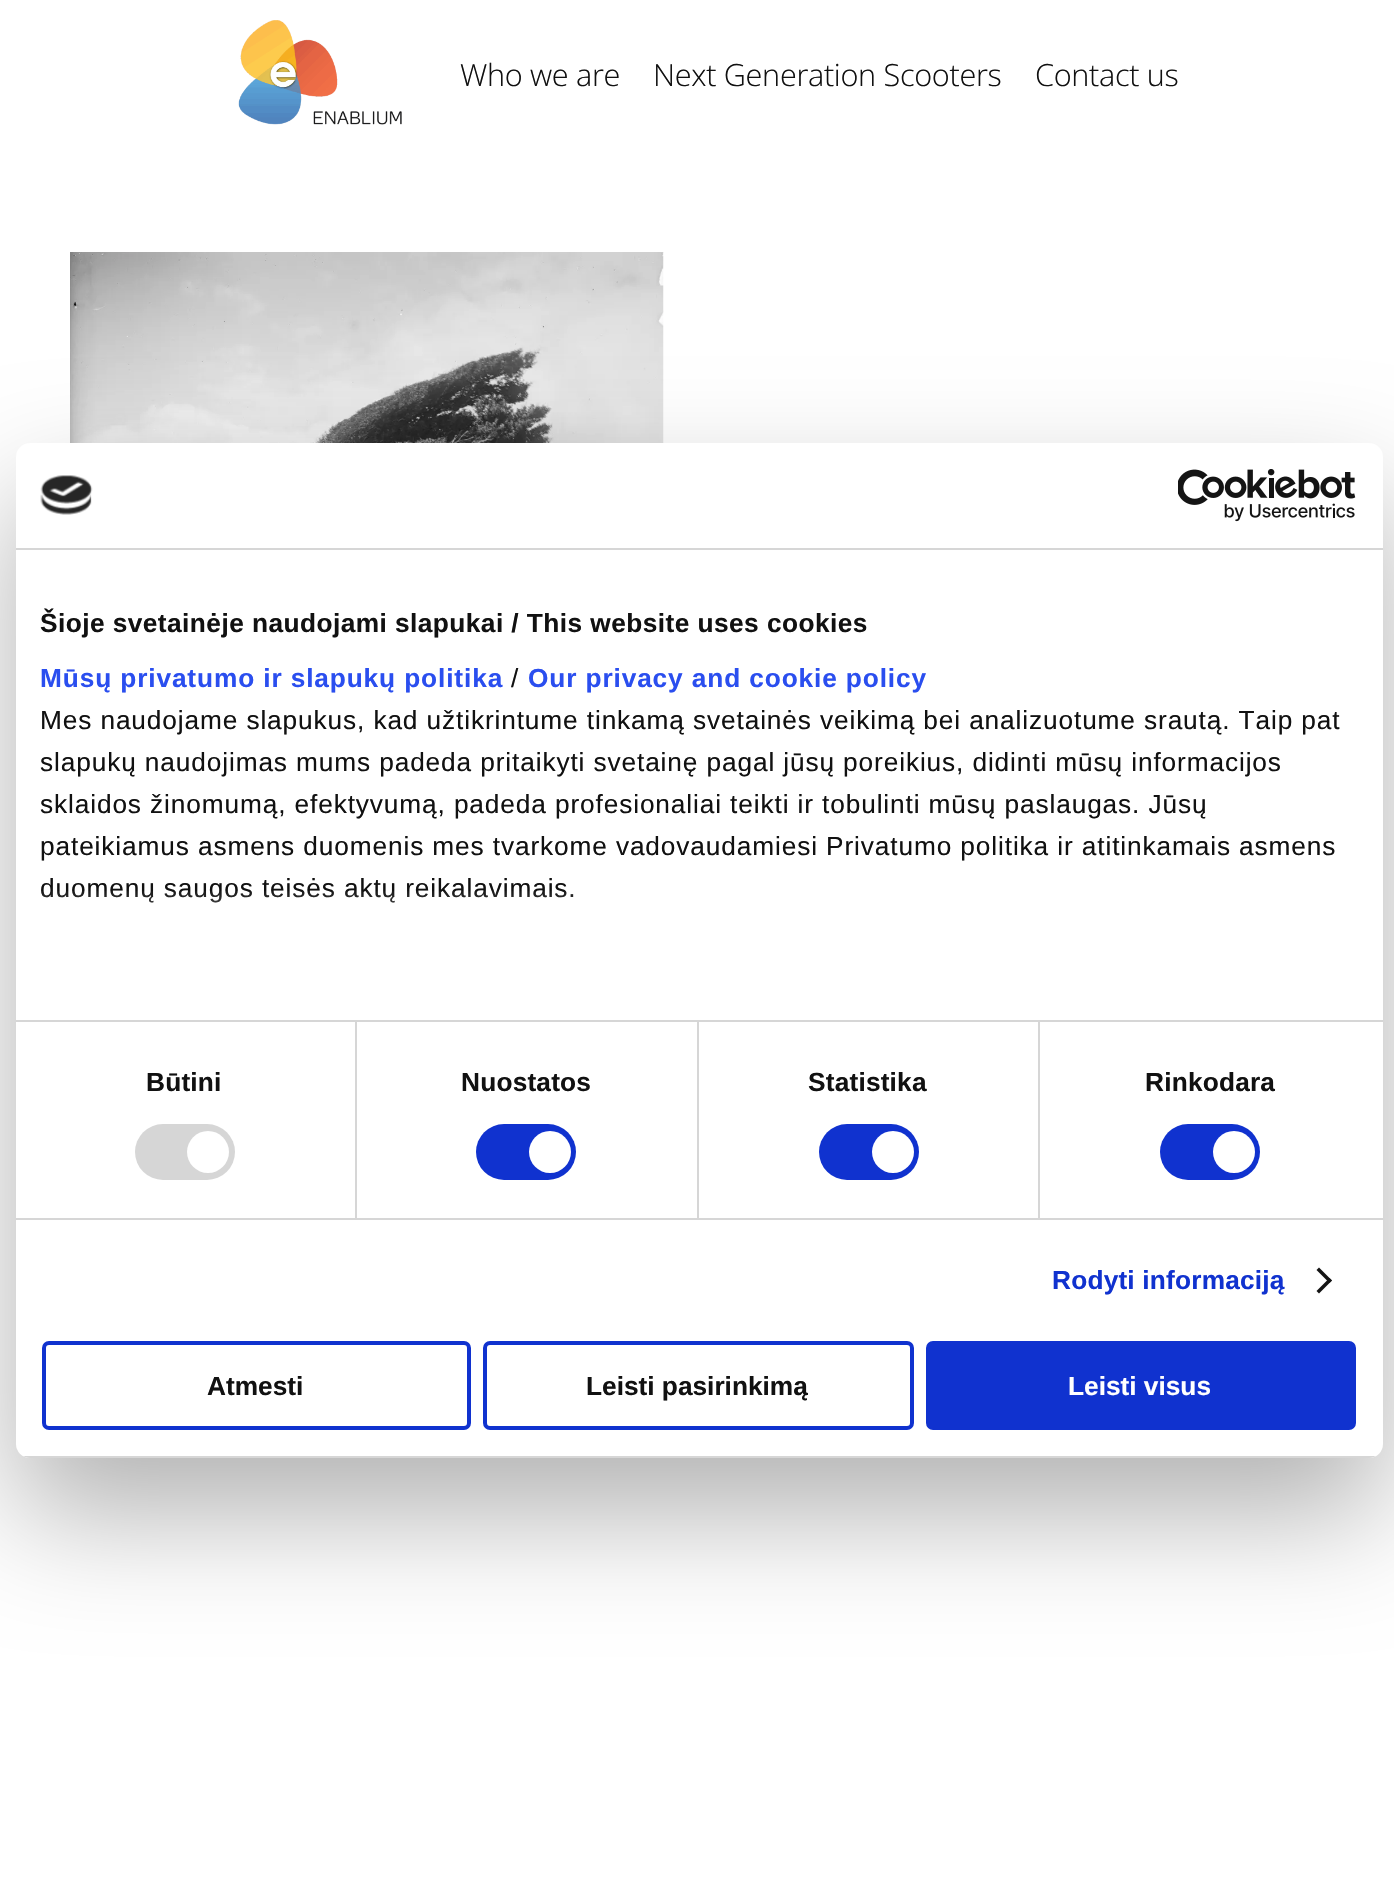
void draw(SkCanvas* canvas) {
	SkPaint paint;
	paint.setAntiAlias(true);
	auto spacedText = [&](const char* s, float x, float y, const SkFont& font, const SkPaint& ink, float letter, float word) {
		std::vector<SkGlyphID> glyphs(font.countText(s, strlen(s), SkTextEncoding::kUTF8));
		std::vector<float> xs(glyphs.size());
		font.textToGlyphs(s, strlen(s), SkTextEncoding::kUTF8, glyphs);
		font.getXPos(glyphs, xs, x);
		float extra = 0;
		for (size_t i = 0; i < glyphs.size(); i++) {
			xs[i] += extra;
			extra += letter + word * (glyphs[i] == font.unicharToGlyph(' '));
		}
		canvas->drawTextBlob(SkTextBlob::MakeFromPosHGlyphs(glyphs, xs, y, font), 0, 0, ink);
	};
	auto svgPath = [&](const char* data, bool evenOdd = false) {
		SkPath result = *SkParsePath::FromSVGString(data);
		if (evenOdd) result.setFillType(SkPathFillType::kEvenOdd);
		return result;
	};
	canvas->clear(0xffffffff);
	canvas->drawImageRect(SkImages::DeferredFromEncodedData(SkData::MakeFromFileName("img1.png")), SkRect::MakeXYWH(238, 20, 164, 105), SkSamplingOptions());
	SkFont f1(fontMgr->matchFamilyStyle("Open Sans", SkFontStyle(300, SkFontStyle::kNormal_Width, SkFontStyle::kUpright_Slant)), 30.6);
	f1.setSubpixel(true);
	paint.setColor(0xff111111);
	spacedText("Who we are", 460, 86, f1, paint, -0.3, 0);
	spacedText("Next Generation Scooters", 653, 86, f1, paint, -0.3, 0);
	spacedText("Contact us", 1035, 86, f1, paint, -0.3, 0);
	canvas->drawImageRect(SkImages::DeferredFromEncodedData(SkData::MakeFromFileName("img2.png")), SkRect::MakeXYWH(70, 252, 594, 191), SkSamplingOptions());
	paint.setColor(0x4d000000);
	paint.setMaskFilter(SkMaskFilter::MakeBlur(kNormal_SkBlurStyle, 59.5));
	canvas->drawRoundRect(SkRect::MakeXYWH(16, 499, 1367, 1015), 14, 14, paint);
	paint.setMaskFilter(nullptr);
	paint.setColor(0xffffffff);
	canvas->drawRoundRect(SkRect::MakeXYWH(16, 443, 1367, 1015), 14, 14, paint);
	paint.setColor(0xffd6d6d6);
	canvas->drawRect(SkRect::MakeXYWH(16, 548, 1367, 2), paint);
	canvas->drawImageRect(SkImages::DeferredFromEncodedData(SkData::MakeFromFileName("img3.png")), SkRect::MakeXYWH(40, 475, 53, 40), SkSamplingOptions());
	canvas->drawImageRect(SkImages::DeferredFromEncodedData(SkData::MakeFromFileName("img4.png")), SkRect::MakeXYWH(1178, 469, 178, 53), SkSamplingOptions());
	canvas->drawRect(SkRect::MakeXYWH(16, 1020, 1367, 2), paint);
	SkFont f2(fontMgr->matchFamilyStyle("Liberation Sans", SkFontStyle::Bold()), 26.25);
	f2.setSubpixel(true);
	paint.setColor(0xff111111);
	spacedText("Šioje svetainėje naudojami slapukai / This website uses cookies", 40, 632, f2, paint, 0.45, 0);
	paint.setColor(0xff2a4eef);
	spacedText("Mūsų privatumo ir slapukų politika", 40, 687, f2, paint, 0.88, 0);
	SkFont f3(fontMgr->matchFamilyStyle("Liberation Sans", SkFontStyle::Normal()), 26.25);
	f3.setSubpixel(true);
	paint.setColor(0xff111111);
	spacedText("/", 511, 687, f3, paint, 0.88, 0);
	paint.setColor(0xff2a4eef);
	spacedText("Our privacy and cookie policy", 528, 687, f2, paint, 0.88, 0);
	paint.setColor(0xff111111);
	spacedText("Mes naudojame slapukus, kad užtikrintume tinkamą svetainės veikimą bei analizuotume srautą. Taip pat", 40, 729, f3, paint, 0.88, 0);
	spacedText("slapukų naudojimas mums padeda pritaikyti svetainę pagal jūsų poreikius, didinti mūsų informacijos", 40, 771, f3, paint, 0.88, 0);
	spacedText("sklaidos žinomumą, efektyvumą, padeda profesionaliai teikti ir tobulinti mūsų paslaugas. Jūsų", 40, 813, f3, paint, 0.88, 0);
	spacedText("pateikiamus asmens duomenis mes tvarkome vadovaudamiesi Privatumo politika ir atitinkamais asmens", 40, 855, f3, paint, 0.88, 0);
	spacedText("duomenų saugos teisės aktų reikalavimais.", 40, 897, f3, paint, 0.88, 0);
	{
		const SkColor colors[] = {0xffffffff, 0xccffffff, 0x00ffffff};
		const float stops[] = {0, 0.5, 1};
		const SkPoint ends[] = {{687, 1020}, {687, 889}};
		paint.setShader(SkGradientShader::MakeLinear(ends, colors, stops, 3, SkTileMode::kClamp));
		paint.setAlpha(255);
	}
	canvas->drawRect(SkRect::MakeXYWH(41, 891, 533, 12), paint);
	paint.setShader(nullptr);
	paint.setColor(0xffd6d6d6);
	canvas->drawRect(SkRect::MakeXYWH(16, 1218, 1367, 2), paint);
	canvas->drawRect(SkRect::MakeXYWH(355, 1022, 2, 196), paint);
	paint.setColor(0xff111111);
	spacedText("Būtini", 146, 1091, f2, paint, 0.2, 0);
	paint.setColor(0xffd6d6d6);
	canvas->drawRoundRect(SkRect::MakeXYWH(135, 1124, 100, 56), 28, 28, paint);
	paint.setColor(0xffffffff);
	canvas->drawCircle(208, 1152, 21, paint);
	paint.setColor(0xffd6d6d6);
	canvas->drawRect(SkRect::MakeXYWH(697, 1022, 2, 196), paint);
	paint.setColor(0xff111111);
	spacedText("Nuostatos", 461, 1091, f2, paint, 0.2, 0);
	paint.setColor(0xff1032cf);
	canvas->drawRoundRect(SkRect::MakeXYWH(476, 1124, 100, 56), 28, 28, paint);
	paint.setColor(0xffffffff);
	canvas->drawCircle(550, 1152, 21, paint);
	paint.setColor(0xffd6d6d6);
	canvas->drawRect(SkRect::MakeXYWH(1038, 1022, 2, 196), paint);
	paint.setColor(0xff111111);
	spacedText("Statistika", 808, 1091, f2, paint, 0.2, 0);
	paint.setColor(0xff1032cf);
	canvas->drawRoundRect(SkRect::MakeXYWH(819, 1124, 100, 56), 28, 28, paint);
	paint.setColor(0xffffffff);
	canvas->drawCircle(893, 1152, 21, paint);
	paint.setColor(0xff111111);
	spacedText("Rinkodara", 1145, 1091, f2, paint, 0.2, 0);
	paint.setColor(0xff1032cf);
	canvas->drawRoundRect(SkRect::MakeXYWH(1160, 1124, 100, 56), 28, 28, paint);
	paint.setColor(0xffffffff);
	canvas->drawCircle(1234, 1152, 21, paint);
	paint.setColor(0xff1032cf);
	spacedText("Rodyti informaciją", 1052, 1289, f2, paint, 0.2, 0);
	paint.setColor(0xff141414);
	canvas->drawPath(svgPath("M1319 1267.5L1332 1280.5L1329.5 1283L1316.5 1270Z"), paint);
	canvas->drawPath(svgPath("M1329.5 1278L1332 1280.5L1319 1293.5L1316.5 1291Z"), paint);
	canvas->save();
	canvas->clipPath(svgPath("M30 443H1369C1376.5 443 1383 449.5 1383 457V1444C1383 1451.5 1376.5 1458 1369 1458H30C22.5 1458 16 1451.5 16 1444V457C16 449.5 22.5 443 30 443Z"), true);
	paint.setColor(0xffd6d6d6);
	canvas->drawRect(SkRect::MakeXYWH(16, 1456, 1367, 2), paint);
	canvas->restore();
	paint.setStroke(true);
	paint.setStrokeWidth(4);
	paint.setColor(0xff1032cf);
	canvas->drawRoundRect(SkRect::MakeXYWH(44, 1343, 425, 85), 5, 5, paint);
	paint.setStroke(false);
	paint.setColor(0xff111111);
	canvas->drawString("Atmesti", 207, 1395, f2, paint);
	paint.setStroke(true);
	paint.setColor(0xff1032cf);
	canvas->drawRoundRect(SkRect::MakeXYWH(485, 1343, 427, 85), 5, 5, paint);
	paint.setStroke(false);
	paint.setColor(0xff111111);
	canvas->drawString("Leisti pasirinkimą", 586, 1395, f2, paint);
	paint.setColor(0xff1032cf);
	canvas->drawRoundRect(SkRect::MakeXYWH(928, 1343, 426, 85), 5, 5, paint);
	paint.setStroke(true);
	canvas->drawRoundRect(SkRect::MakeXYWH(928, 1343, 426, 85), 5, 5, paint);
	paint.setStroke(false);
	paint.setColor(0xffffffff);
	canvas->drawString("Leisti visus", 1068, 1395, f2, paint);
}
